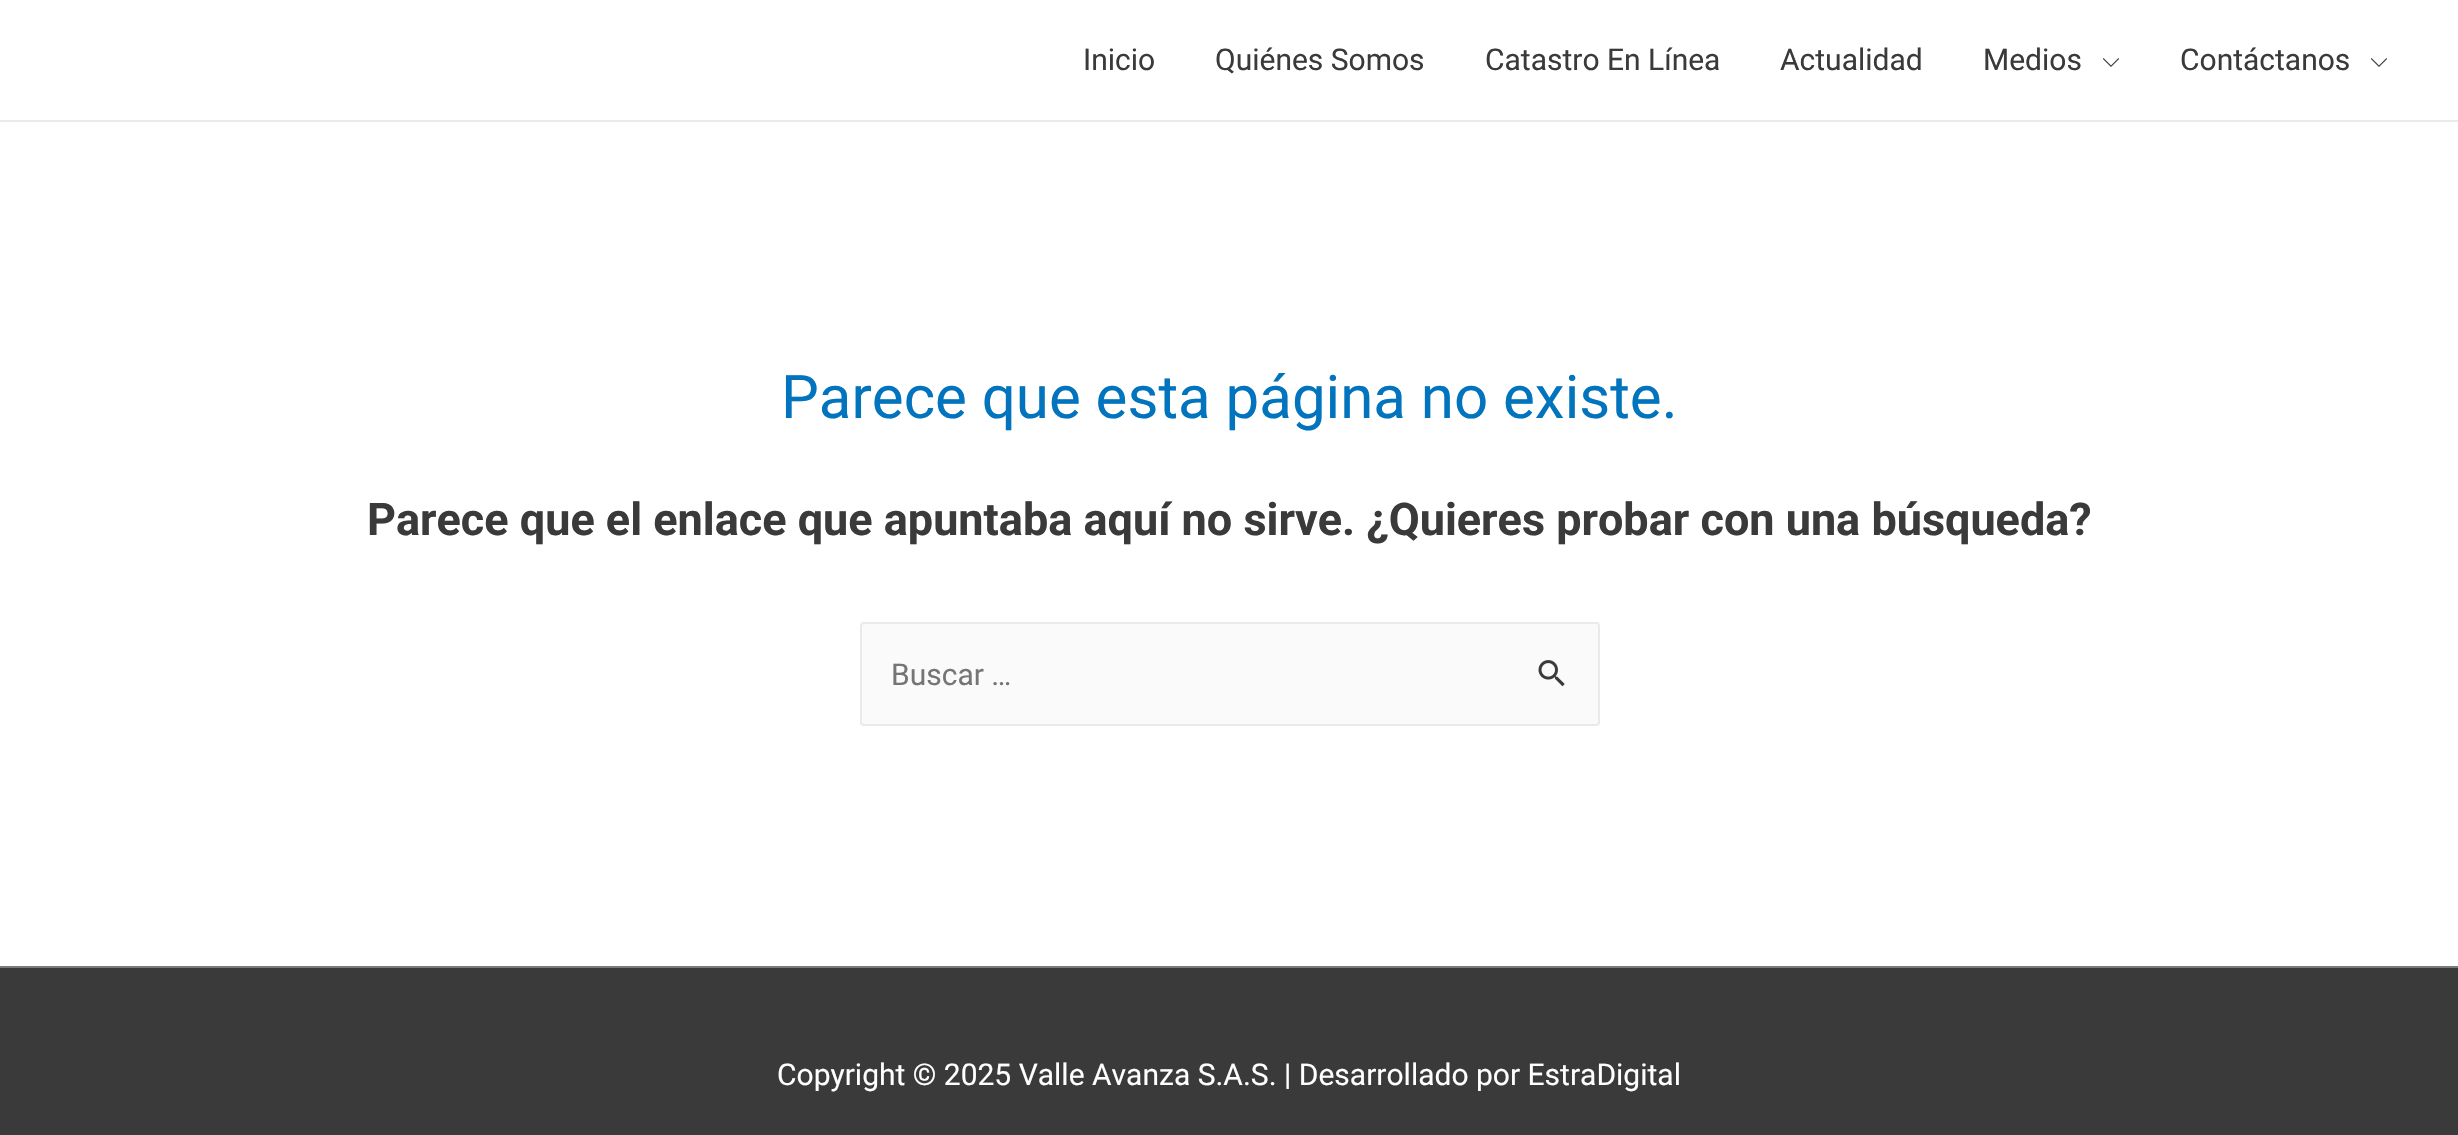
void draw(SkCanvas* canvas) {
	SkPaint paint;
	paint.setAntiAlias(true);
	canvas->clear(0xffffffff);
	paint.setColor(0xffeaeaea);
	canvas->drawRect(SkRect::MakeXYWH(0, 120, 2458, 2), paint);
	SkFont f1(fontMgr->matchFamilyStyle("Roboto", SkFontStyle::Normal()), 30);
	f1.setSubpixel(true);
	paint.setColor(0xff3a3a3a);
	canvas->drawString("Inicio", 1083, 70, f1, paint);
	canvas->drawString("Quiénes Somos", 1215, 70, f1, paint);
	canvas->drawString("Catastro En Línea", 1485, 70, f1, paint);
	canvas->drawString("Actualidad", 1780, 70, f1, paint);
	canvas->drawString("Medios", 1983, 70, f1, paint);
	canvas->drawImageRect(SkImages::DeferredFromEncodedData(SkData::MakeFromFileName("img1.png")), SkRect::MakeXYWH(2102, 58, 17, 9), SkSamplingOptions());
	canvas->drawString("Contáctanos", 2180, 70, f1, paint);
	canvas->drawImageRect(SkImages::DeferredFromEncodedData(SkData::MakeFromFileName("img1.png")), SkRect::MakeXYWH(2370, 58, 17, 9), SkSamplingOptions());
	SkFont f2(fontMgr->matchFamilyStyle("Roboto", SkFontStyle::Normal()), 60);
	f2.setSubpixel(true);
	paint.setColor(0xff0274be);
	canvas->drawString("Parece que esta página no existe.", 781, 418, f2, paint);
	SkFont f3(fontMgr->matchFamilyStyle("Roboto", SkFontStyle::Bold()), 45);
	f3.setSubpixel(true);
	paint.setColor(0xff3a3a3a);
	canvas->drawString("Parece que el enlace que apuntaba aquí no sirve. ¿Quieres probar con una búsqueda?", 367, 535, f3, paint);
	paint.setColor(0xfffafafa);
	canvas->drawRoundRect(SkRect::MakeXYWH(861, 623, 738, 102), 3, 3, paint);
	paint.setStroke(true);
	paint.setStrokeWidth(2);
	paint.setColor(0xffeaeaea);
	canvas->drawRoundRect(SkRect::MakeXYWH(861, 623, 738, 102), 3, 3, paint);
	paint.setStroke(false);
	paint.setColor(0xff757575);
	canvas->drawString("Buscar …", 891, 685, f1, paint);
	canvas->drawImageRect(SkImages::DeferredFromEncodedData(SkData::MakeFromFileName("img2.png")), SkRect::MakeXYWH(1538, 660, 27, 27), SkSamplingOptions());
	paint.setColor(0xff7a7a7a);
	canvas->drawRect(SkRect::MakeXYWH(0, 966, 2458, 2), paint);
	paint.setColor(0xff3a3a3a);
	canvas->drawRect(SkRect::MakeXYWH(0, 968, 2458, 167), paint);
	paint.setColor(0xffffffff);
	canvas->drawString("Copyright © 2025 Valle Avanza S.A.S. | Desarrollado por EstraDigital", 777, 1085, f1, paint);
}
